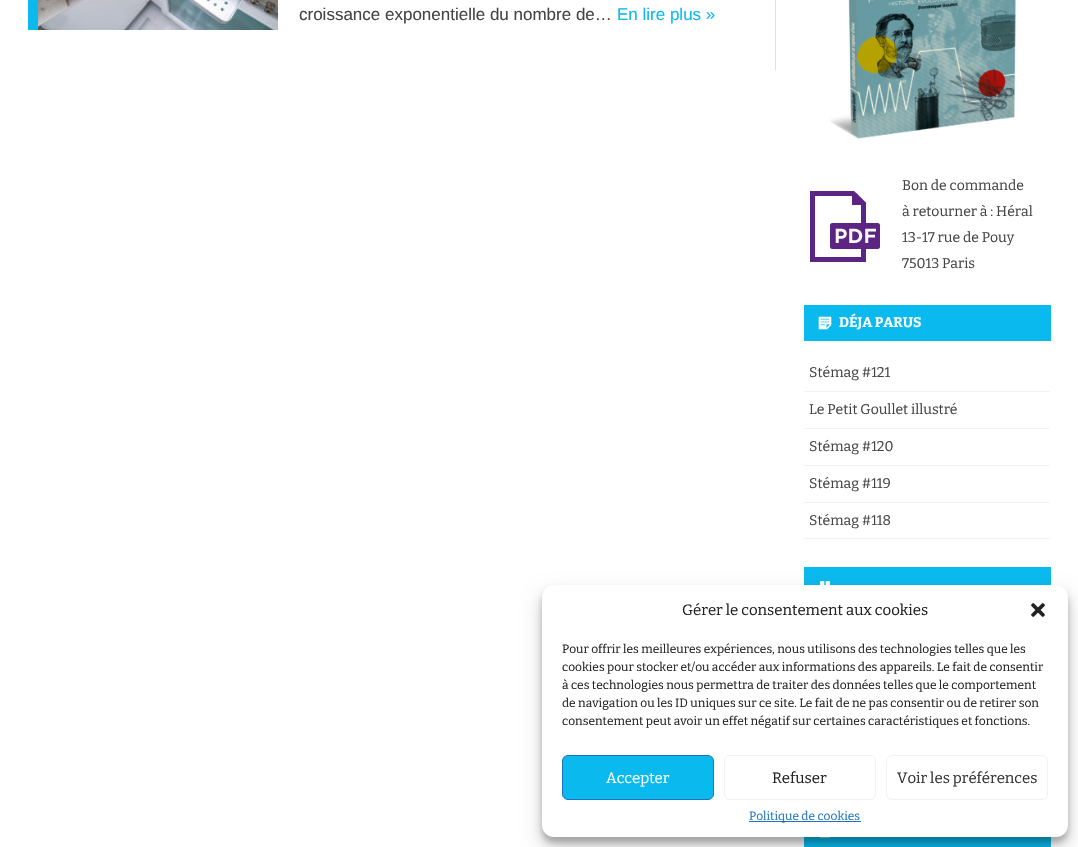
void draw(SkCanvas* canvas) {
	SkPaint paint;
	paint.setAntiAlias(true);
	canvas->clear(0xffffffff);
	paint.setColor(0xffe0e0e0);
	canvas->drawRect(SkRect::MakeXYWH(775, 0, 1, 70), paint);
	paint.setColor(0xff0abaee);
	canvas->drawRect(SkRect::MakeXYWH(28, 0, 10, 30), paint);
	canvas->drawImageRect(SkImages::DeferredFromEncodedData(SkData::MakeFromFileName("img1.png")), SkRect::MakeXYWH(38, 0, 240, 30), SkSamplingOptions());
	SkFont f1(fontMgr->matchFamilyStyle("Liberation Sans", SkFontStyle::Normal()), 17);
	f1.setSubpixel(true);
	paint.setColor(0xff444444);
	canvas->drawString("croissance exponentielle du nombre de…", 299, 20, f1, paint);
	paint.setColor(0xff0abaee);
	canvas->drawString("En lire plus »", 617, 20, f1, paint);
	canvas->drawImageRect(SkImages::DeferredFromEncodedData(SkData::MakeFromFileName("img2.png")), SkRect::MakeXYWH(830, 0, 186, 139), SkSamplingOptions());
	canvas->drawImageRect(SkImages::DeferredFromEncodedData(SkData::MakeFromFileName("img3.png")), SkRect::MakeXYWH(810, 191, 71, 71), SkSamplingOptions());
	SkFont f2(fontMgr->matchFamilyStyle("Bitter", SkFontStyle::Normal()), 14);
	f2.setSubpixel(true);
	paint.setColor(0xff444444);
	canvas->drawString("Bon de commande", 902, 190, f2, paint);
	canvas->drawString("à retourner à : Héral", 902, 216, f2, paint);
	canvas->drawString("13-17 rue de Pouy", 902, 242, f2, paint);
	canvas->drawString("75013 Paris", 902, 268, f2, paint);
	paint.setColor(0xff0abaee);
	canvas->drawRect(SkRect::MakeXYWH(804, 305, 247, 36), paint);
	canvas->drawImageRect(SkImages::DeferredFromEncodedData(SkData::MakeFromFileName("img4.png")), SkRect::MakeXYWH(818, 316, 14, 14), SkSamplingOptions());
	SkFont f3(fontMgr->matchFamilyStyle("Bitter", SkFontStyle::Bold()), 14);
	f3.setSubpixel(true);
	paint.setColor(0xffffffff);
	canvas->drawString("DÉJA PARUS", 839, 327, f3, paint);
	paint.setColor(0xfff2f2f2);
	canvas->drawRect(SkRect::MakeXYWH(804, 391, 246, 1), paint);
	paint.setColor(0xff444444);
	canvas->drawString("Stémag #121", 809, 377, f2, paint);
	paint.setColor(0xfff2f2f2);
	canvas->drawRect(SkRect::MakeXYWH(804, 428, 246, 1), paint);
	paint.setColor(0xff444444);
	canvas->drawString("Le Petit Goullet illustré", 809, 414, f2, paint);
	paint.setColor(0xfff2f2f2);
	canvas->drawRect(SkRect::MakeXYWH(804, 465, 246, 1), paint);
	paint.setColor(0xff444444);
	canvas->drawString("Stémag #120", 809, 451, f2, paint);
	paint.setColor(0xfff2f2f2);
	canvas->drawRect(SkRect::MakeXYWH(804, 502, 246, 1), paint);
	paint.setColor(0xff444444);
	canvas->drawString("Stémag #119", 809, 488, f2, paint);
	paint.setColor(0xfff2f2f2);
	canvas->drawRect(SkRect::MakeXYWH(804, 538, 246, 1), paint);
	paint.setColor(0xff444444);
	canvas->drawString("Stémag #118", 809, 525, f2, paint);
	paint.setColor(0xff0abaee);
	canvas->drawRect(SkRect::MakeXYWH(804, 567, 247, 18), paint);
	canvas->drawImageRect(SkImages::DeferredFromEncodedData(SkData::MakeFromFileName("img5.png")), SkRect::MakeXYWH(820, 581, 10, 4), SkSamplingOptions());
	canvas->drawRect(SkRect::MakeXYWH(804, 837, 247, 10), paint);
	canvas->drawImageRect(SkImages::DeferredFromEncodedData(SkData::MakeFromFileName("img6.png")), SkRect::MakeXYWH(820, 837, 10, 1), SkSamplingOptions());
	paint.setColor(0x3b000000);
	paint.setMaskFilter(SkMaskFilter::MakeBlur(kNormal_SkBlurStyle, 3));
	canvas->drawRoundRect(SkRect::MakeXYWH(542, 591, 526, 252), 12, 12, paint);
	paint.setMaskFilter(nullptr);
	paint.setColor(0x30000000);
	paint.setMaskFilter(SkMaskFilter::MakeBlur(kNormal_SkBlurStyle, 10));
	canvas->drawRoundRect(SkRect::MakeXYWH(542, 595, 526, 252), 12, 12, paint);
	paint.setMaskFilter(nullptr);
	paint.setColor(0xffffffff);
	canvas->drawRoundRect(SkRect::MakeXYWH(542, 585, 526, 252), 12, 12, paint);
	SkFont f4(fontMgr->matchFamilyStyle("Bitter", SkFontStyle::Normal()), 15);
	f4.setSubpixel(true);
	paint.setColor(0xff222222);
	canvas->drawString("Gérer le consentement aux cookies", 682, 615, f4, paint);
	canvas->drawImageRect(SkImages::DeferredFromEncodedData(SkData::MakeFromFileName("img7.png")), SkRect::MakeXYWH(1031, 603, 14, 14), SkSamplingOptions());
	SkFont f5(fontMgr->matchFamilyStyle("Bitter", SkFontStyle::Normal()), 12);
	f5.setSubpixel(true);
	canvas->drawString("Pour offrir les meilleures expériences, nous utilisons des technologies telles que les", 562, 653, f5, paint);
	canvas->drawString("cookies pour stocker et/ou accéder aux informations des appareils. Le fait de consentir", 562, 671, f5, paint);
	canvas->drawString("à ces technologies nous permettra de traiter des données telles que le comportement", 562, 689, f5, paint);
	canvas->drawString("de navigation ou les ID uniques sur ce site. Le fait de ne pas consentir ou de retirer son", 562, 707, f5, paint);
	canvas->drawString("consentement peut avoir un effet négatif sur certaines caractéristiques et fonctions.", 562, 725, f5, paint);
	paint.setColor(0xff0abaee);
	canvas->drawRoundRect(SkRect::MakeXYWH(562.5, 755.5, 151, 44), 5.5, 5.5, paint);
	paint.setStroke(true);
	paint.setStrokeWidth(1);
	paint.setColor(0xff1e73be);
	canvas->drawRoundRect(SkRect::MakeXYWH(562.5, 755.5, 151, 44), 5.5, 5.5, paint);
	paint.setStroke(false);
	paint.setColor(0xffffffff);
	canvas->drawString("Accepter", 606, 783, f4, paint);
	paint.setStroke(true);
	paint.setColor(0xfff2f2f2);
	canvas->drawRoundRect(SkRect::MakeXYWH(724.5, 755.5, 151, 44), 5.5, 5.5, paint);
	paint.setStroke(false);
	paint.setColor(0xff222222);
	canvas->drawString("Refuser", 772, 783, f4, paint);
	paint.setStroke(true);
	paint.setColor(0xfff2f2f2);
	canvas->drawRoundRect(SkRect::MakeXYWH(886.5, 755.5, 161, 44), 5.5, 5.5, paint);
	paint.setStroke(false);
	paint.setColor(0xff333333);
	canvas->drawString("Voir les préférences", 897, 783, f4, paint);
	paint.setColor(0xff1e73be);
	canvas->drawRect(SkRect::MakeXYWH(749, 821, 112, 1), paint);
	canvas->drawString("Politique de cookies", 749, 820, f5, paint);
}
